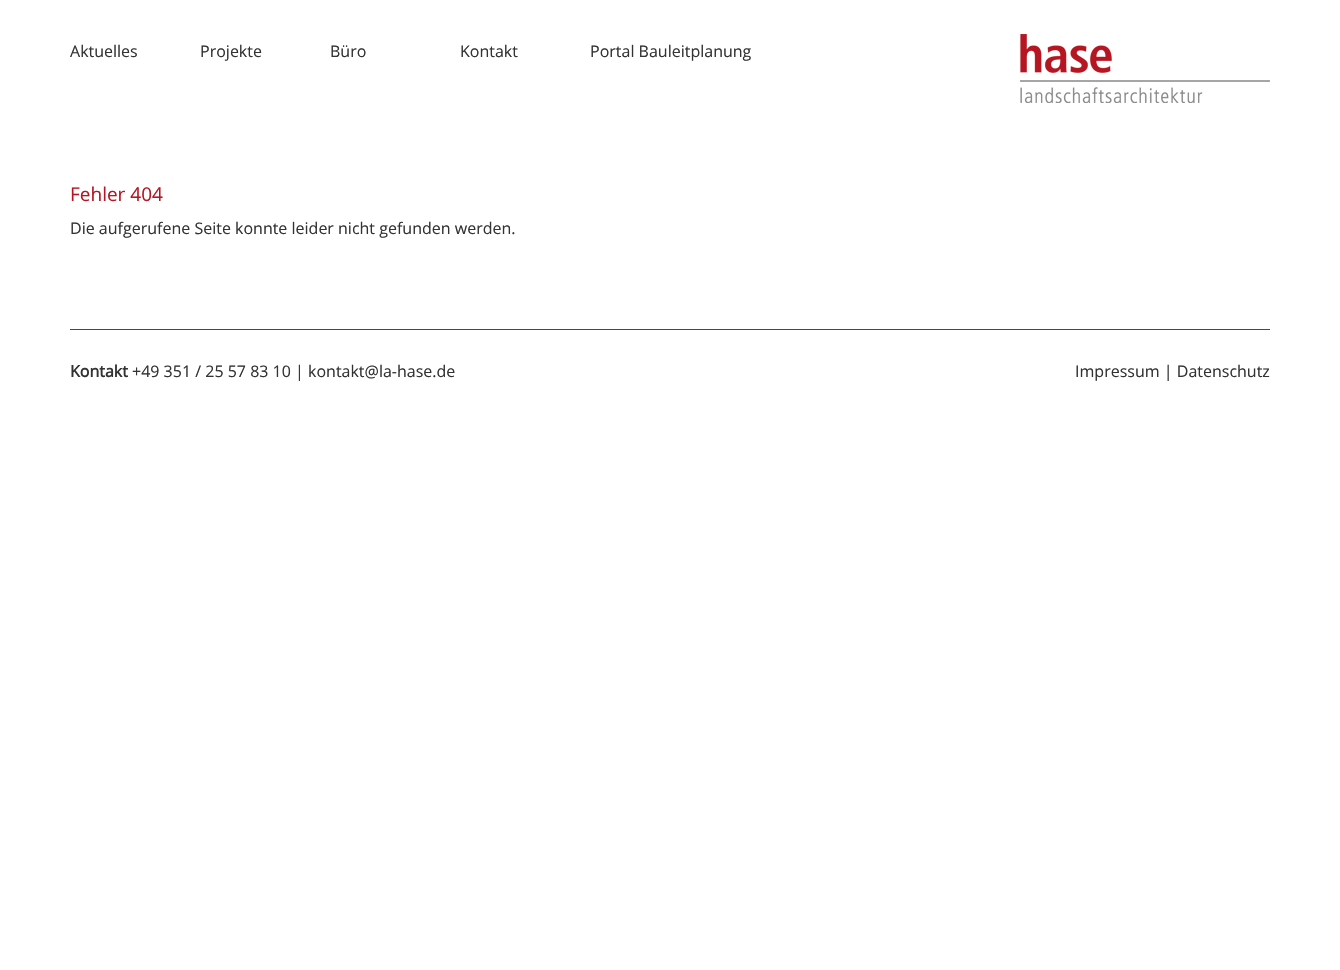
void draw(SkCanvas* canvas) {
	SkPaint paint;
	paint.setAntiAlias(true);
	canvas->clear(0xffffffff);
	SkFont f1(fontMgr->matchFamilyStyle("Open Sans", SkFontStyle::Normal()), 16);
	f1.setSubpixel(true);
	paint.setColor(0xff333333);
	canvas->drawString("Aktuelles", 70, 57, f1, paint);
	canvas->drawString("Projekte", 200, 57, f1, paint);
	canvas->drawString("Büro", 330, 57, f1, paint);
	canvas->drawString("Kontakt", 460, 57, f1, paint);
	canvas->drawString("Portal Bauleitplanung", 590, 57, f1, paint);
	canvas->drawImageRect(SkImages::DeferredFromEncodedData(SkData::MakeFromFileName("img1.png")), SkRect::MakeXYWH(1020, 34, 250, 69), SkSamplingOptions());
	SkFont f2(fontMgr->matchFamilyStyle("Open Sans", SkFontStyle::Normal()), 19);
	f2.setSubpixel(true);
	paint.setColor(0xffb61623);
	canvas->drawString("Fehler 404", 70, 201, f2, paint);
	paint.setColor(0xff333333);
	canvas->drawString("Die aufgerufene Seite konnte leider nicht gefunden werden.", 70, 234, f1, paint);
	paint.setColor(0xffb61623);
	canvas->drawRect(SkRect::MakeXYWH(70, 329, 1200, 1), paint);
	SkFont f3(fontMgr->matchFamilyStyle("Open Sans", SkFontStyle::Bold()), 16);
	f3.setSubpixel(true);
	paint.setColor(0xff333333);
	canvas->drawString("Kontakt", 70, 377, f3, paint);
	canvas->drawString("+49 351 / 25 57 83 10 | kontakt@la-hase.de", 132, 377, f1, paint);
	canvas->drawString("Impressum | Datenschutz", 1075, 377, f1, paint);
}
